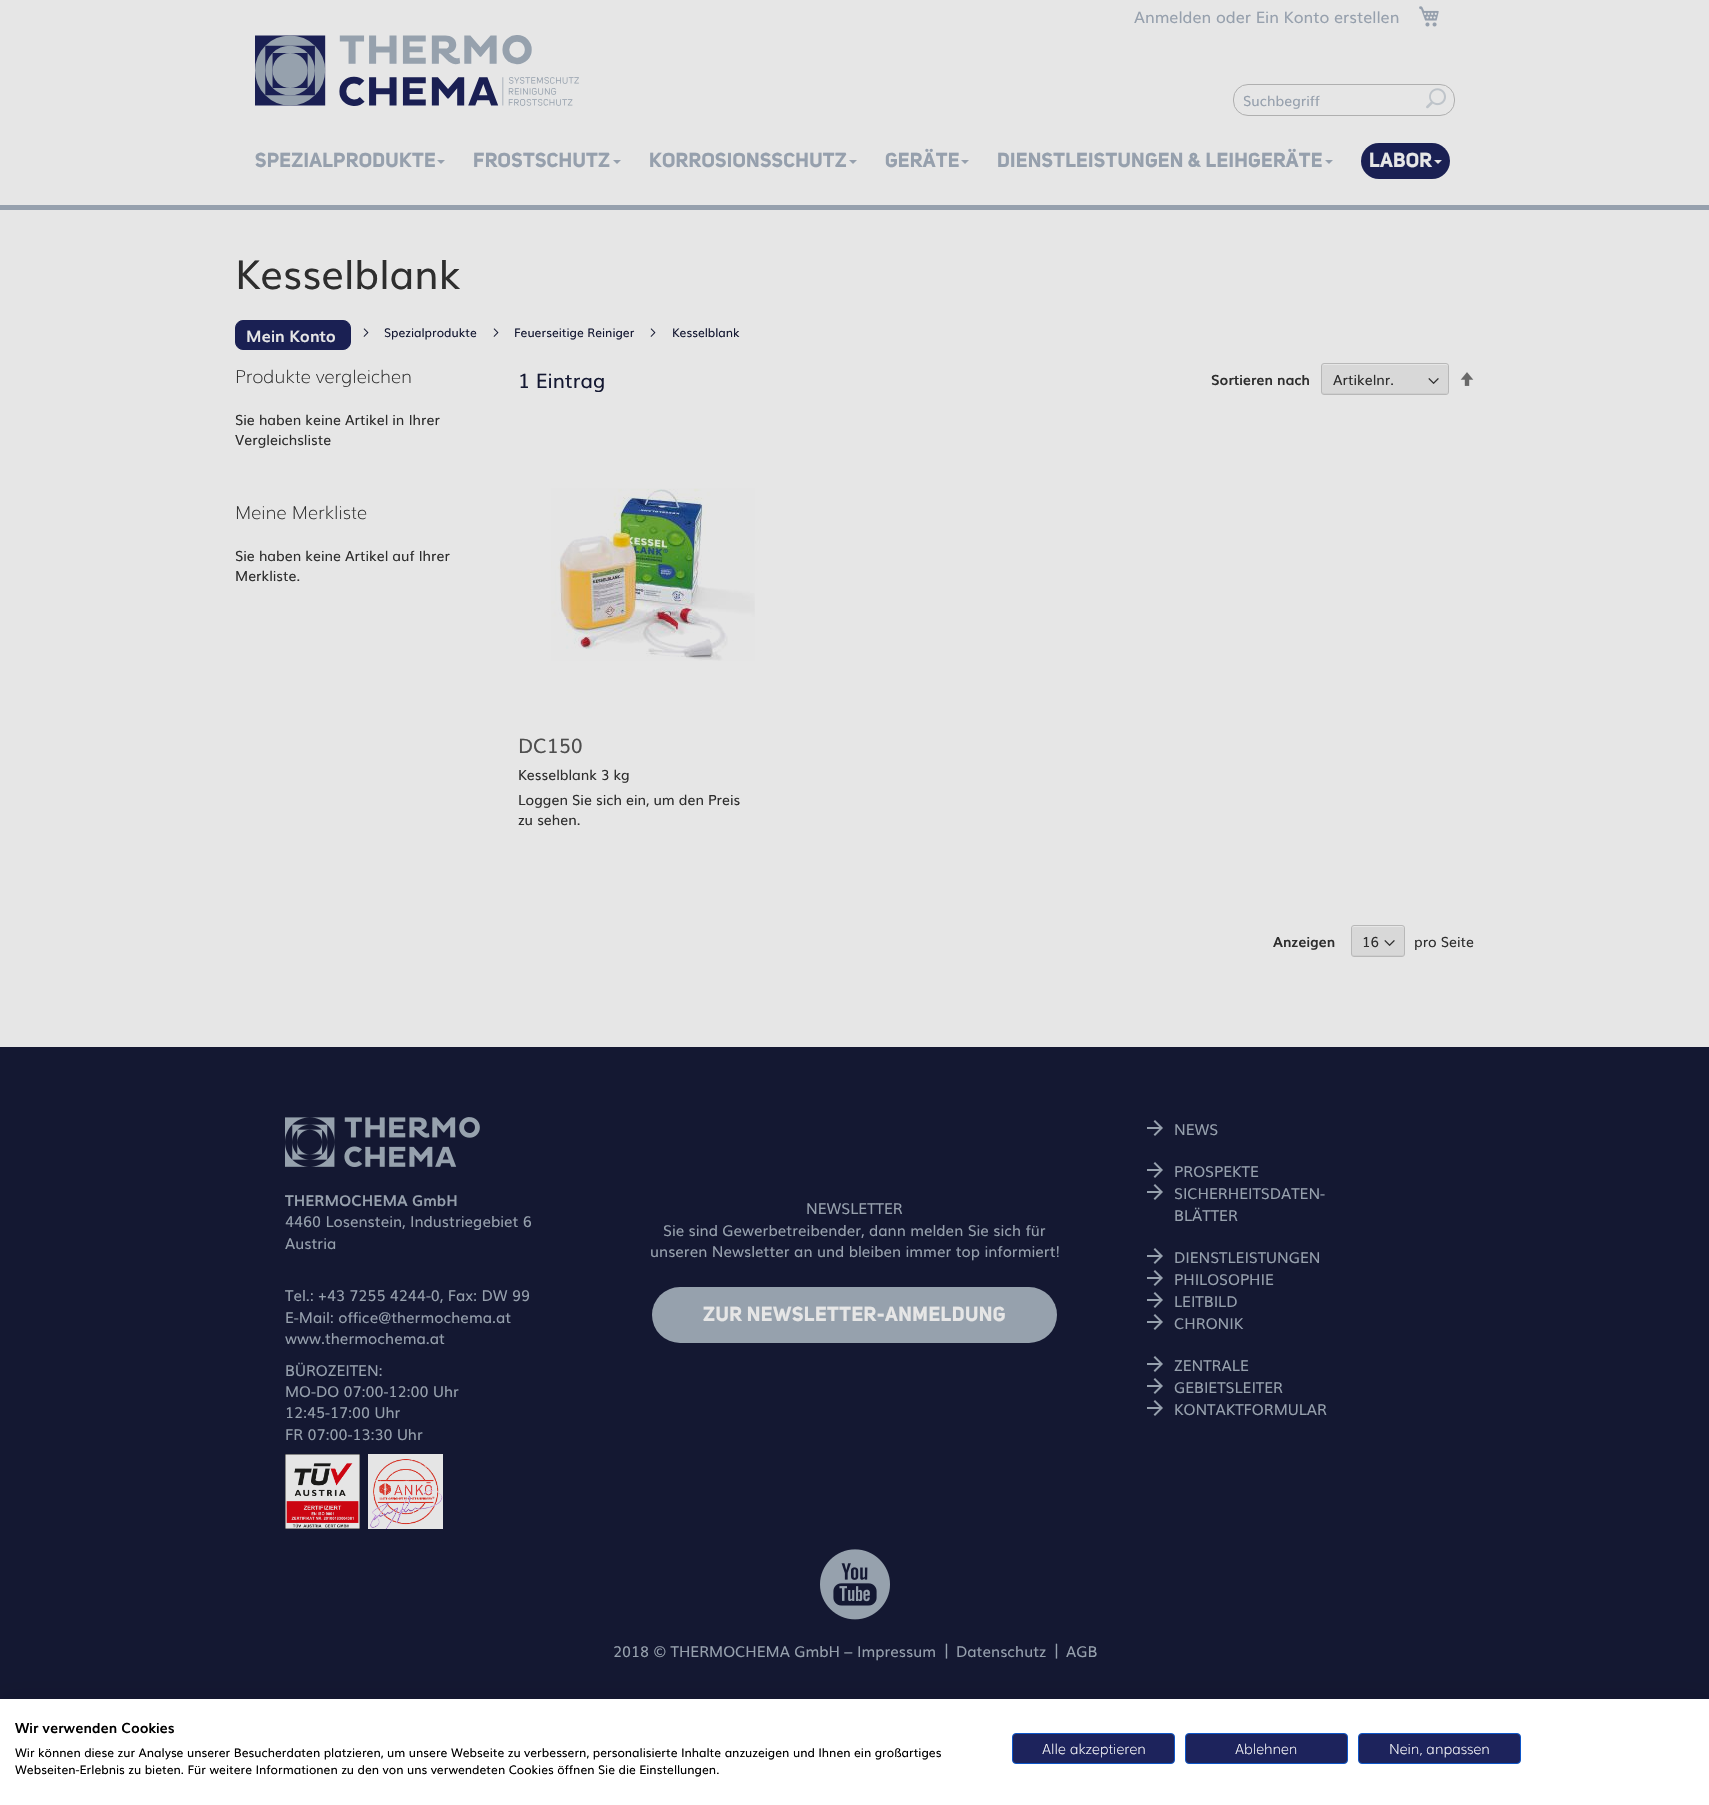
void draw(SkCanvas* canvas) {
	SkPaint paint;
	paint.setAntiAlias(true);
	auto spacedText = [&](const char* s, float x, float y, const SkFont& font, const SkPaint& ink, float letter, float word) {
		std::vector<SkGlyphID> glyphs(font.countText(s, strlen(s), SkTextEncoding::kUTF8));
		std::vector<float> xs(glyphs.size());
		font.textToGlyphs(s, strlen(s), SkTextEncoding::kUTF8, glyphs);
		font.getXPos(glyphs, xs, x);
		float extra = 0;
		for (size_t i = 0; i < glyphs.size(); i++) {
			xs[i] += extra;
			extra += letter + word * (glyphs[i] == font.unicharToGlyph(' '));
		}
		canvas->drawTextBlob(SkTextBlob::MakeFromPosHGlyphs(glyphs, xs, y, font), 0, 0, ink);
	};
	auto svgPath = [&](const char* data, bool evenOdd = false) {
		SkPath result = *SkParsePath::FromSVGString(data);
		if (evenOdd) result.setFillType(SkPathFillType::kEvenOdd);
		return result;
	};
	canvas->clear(0xffe6e6e6);
	SkFont f1(fontMgr->matchFamilyStyle("Muli", SkFontStyle::Normal()), 16);
	f1.setSubpixel(true);
	paint.setColor(0xff96a0ad);
	canvas->drawString("Anmelden oder Ein Konto erstellen", 1134, 23, f1, paint);
	canvas->drawImageRect(SkImages::DeferredFromEncodedData(SkData::MakeFromFileName("img1.png")), SkRect::MakeXYWH(1419, 6, 20, 21), SkSamplingOptions());
	canvas->drawImageRect(SkImages::DeferredFromEncodedData(SkData::MakeFromFileName("img2.png")), SkRect::MakeXYWH(255, 35, 324, 71), SkSamplingOptions());
	paint.setStroke(true);
	paint.setStrokeWidth(1);
	paint.setColor(0xffafafaf);
	canvas->drawRoundRect(SkRect::MakeXYWH(1233.5, 84.5, 221, 31), 14.5, 14.5, paint);
	SkFont f2(fontMgr->matchFamilyStyle("Muli", SkFontStyle::Normal()), 14);
	f2.setSubpixel(true);
	paint.setStroke(false);
	paint.setColor(0xff96a0ad);
	canvas->drawString("Suchbegriff", 1243, 106, f2, paint);
	canvas->drawImageRect(SkImages::DeferredFromEncodedData(SkData::MakeFromFileName("img3.png")), SkRect::MakeXYWH(1426, 88, 20, 21), SkSamplingOptions());
	SkFont f3(fontMgr->matchFamilyStyle("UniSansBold", SkFontStyle::Normal()), 20);
	f3.setSubpixel(true);
	spacedText("SPEZIALPRODUKTE", 255, 167, f3, paint, 0.3, 0);
	canvas->drawPath(svgPath("M437 160H445L441 164Z"), paint);
	spacedText("FROSTSCHUTZ", 473, 167, f3, paint, 0.3, 0);
	canvas->drawPath(svgPath("M613 160H621L617 164Z"), paint);
	spacedText("KORROSIONSSCHUTZ", 649, 167, f3, paint, 0.3, 0);
	canvas->drawPath(svgPath("M849 160H857L853 164Z"), paint);
	spacedText("GERÄTE", 885, 167, f3, paint, 0.3, 0);
	canvas->drawPath(svgPath("M961 160H969L965 164Z"), paint);
	spacedText("DIENSTLEISTUNGEN & LEIHGERÄTE", 997, 167, f3, paint, 0.3, 0);
	canvas->drawPath(svgPath("M1325 160H1333L1329 164Z"), paint);
	paint.setColor(0xff1a2053);
	canvas->drawRoundRect(SkRect::MakeXYWH(1361, 143, 89, 36), 18, 18, paint);
	paint.setColor(0xffe6e6e6);
	spacedText("LABOR", 1369, 167, f3, paint, 0.3, 0);
	canvas->drawPath(svgPath("M1434 160H1442L1438 164Z"), paint);
	paint.setColor(0xff96a0ad);
	canvas->drawRect(SkRect::MakeXYWH(0, 205, 1709, 5), paint);
	SkFont f4(fontMgr->matchFamilyStyle("Muli", SkFontStyle::Normal()), 40);
	f4.setSubpixel(true);
	paint.setColor(0xff2e2e2e);
	canvas->drawString("Kesselblank", 235, 289, f4, paint);
	paint.setColor(0xff1a2053);
	canvas->drawRoundRect(SkRect::MakeXYWH(235.5, 320.5, 115, 29), 7.5, 7.5, paint);
	paint.setStroke(true);
	canvas->drawRoundRect(SkRect::MakeXYWH(235.5, 320.5, 115, 29), 7.5, 7.5, paint);
	SkFont f5(fontMgr->matchFamilyStyle("Muli", SkFontStyle::Bold()), 16);
	f5.setSubpixel(true);
	paint.setStroke(false);
	paint.setColor(0xffe6e6e6);
	canvas->drawString("Mein Konto", 246, 342, f5, paint);
	canvas->drawImageRect(SkImages::DeferredFromEncodedData(SkData::MakeFromFileName("img4.png")), SkRect::MakeXYWH(363, 328, 6, 9), SkSamplingOptions());
	SkFont f6(fontMgr->matchFamilyStyle("Muli", SkFontStyle::Normal()), 12);
	f6.setSubpixel(true);
	paint.setColor(0xff141832);
	canvas->drawString("Spezialprodukte", 384, 337, f6, paint);
	canvas->drawImageRect(SkImages::DeferredFromEncodedData(SkData::MakeFromFileName("img4.png")), SkRect::MakeXYWH(493, 328, 6, 9), SkSamplingOptions());
	canvas->drawString("Feuerseitige Reiniger", 514, 337, f6, paint);
	canvas->drawImageRect(SkImages::DeferredFromEncodedData(SkData::MakeFromFileName("img4.png")), SkRect::MakeXYWH(650, 328, 6, 9), SkSamplingOptions());
	canvas->drawString("Kesselblank", 672, 337, f6, paint);
	SkFont f7(fontMgr->matchFamilyStyle("Muli", SkFontStyle(200, SkFontStyle::kNormal_Width, SkFontStyle::kUpright_Slant)), 18);
	f7.setSubpixel(true);
	paint.setColor(0xff2e2e2e);
	canvas->drawString("Produkte vergleichen", 235, 383, f7, paint);
	canvas->drawString("Sie haben keine Artikel in Ihrer", 235, 425, f2, paint);
	canvas->drawString("Vergleichsliste", 235, 445, f2, paint);
	canvas->drawString("Meine Merkliste", 235, 519, f7, paint);
	canvas->drawString("Sie haben keine Artikel auf Ihrer", 235, 561, f2, paint);
	canvas->drawString("Merkliste.", 235, 581, f2, paint);
	SkFont f8(fontMgr->matchFamilyStyle("Muli", SkFontStyle::Normal()), 20);
	f8.setSubpixel(true);
	paint.setColor(0xff141832);
	canvas->drawString("1 Eintrag", 518, 388, f8, paint);
	SkFont f9(fontMgr->matchFamilyStyle("Muli", SkFontStyle::Bold()), 14);
	f9.setSubpixel(true);
	paint.setColor(0xff2e2e2e);
	canvas->drawString("Sortieren nach", 1211, 385, f9, paint);
	paint.setColor(0xffd8d8d8);
	canvas->drawRoundRect(SkRect::MakeXYWH(1322, 364, 126, 30), 2, 2, paint);
	canvas->drawImageRect(SkImages::DeferredFromEncodedData(SkData::MakeFromFileName("img5.png")), SkRect::MakeXYWH(1428, 378, 11, 6), SkSamplingOptions());
	paint.setColor(0xffcecece);
	canvas->drawPath(svgPath("M1322 391C1322 392 1322 393 1323 394H1446L1447 393L1448 391C1448 392 1447 393 1446 393H1324L1322 392Z"), paint);
	paint.setColor(0xffe6e6e6);
	canvas->drawPath(svgPath("M1324 365H1446L1448 366V367C1448 366 1448 365 1447 364H1324L1323 365L1322 367C1322 366 1323 365 1324 365Z"), paint);
	paint.setStroke(true);
	paint.setColor(0xffb8b8b8);
	canvas->drawRoundRect(SkRect::MakeXYWH(1321.5, 363.5, 127, 31), 2.5, 2.5, paint);
	paint.setStroke(false);
	paint.setColor(0xff2e2e2e);
	canvas->drawString("Artikelnr.", 1333, 385, f2, paint);
	canvas->drawImageRect(SkImages::DeferredFromEncodedData(SkData::MakeFromFileName("img6.png")), SkRect::MakeXYWH(1460, 372, 14, 14), SkSamplingOptions());
	canvas->drawImageRect(SkImages::DeferredFromEncodedData(SkData::MakeFromFileName("img7.png")), SkRect::MakeXYWH(551, 488, 204, 173), SkSamplingOptions());
	paint.setColor(0xff4e4e4e);
	canvas->drawString("DC150", 518, 753, f8, paint);
	paint.setColor(0xff2e2e2e);
	canvas->drawString("Kesselblank 3 kg", 518, 780, f2, paint);
	canvas->drawString("Loggen Sie sich ein, um den Preis", 518, 805, f2, paint);
	canvas->drawString("zu sehen.", 518, 825, f2, paint);
	canvas->drawString("Anzeigen", 1273, 947, f9, paint);
	paint.setColor(0xffd8d8d8);
	canvas->drawRoundRect(SkRect::MakeXYWH(1352, 926, 52, 30), 2, 2, paint);
	canvas->drawImageRect(SkImages::DeferredFromEncodedData(SkData::MakeFromFileName("img5.png")), SkRect::MakeXYWH(1384, 940, 11, 6), SkSamplingOptions());
	paint.setColor(0xffcecece);
	canvas->drawPath(svgPath("M1352 953C1352 958 1358 956 1362 956H1394C1398 956 1404 958 1404 953L1403 955H1353Z"), paint);
	paint.setColor(0xffe6e6e6);
	canvas->drawPath(svgPath("M1354 927H1402C1403 927 1404 928 1404 929C1404 924 1398 926 1394 926H1362C1358 926 1352 924 1352 929C1352 928 1353 927 1354 927Z"), paint);
	paint.setStroke(true);
	paint.setColor(0xffb8b8b8);
	canvas->drawRoundRect(SkRect::MakeXYWH(1351.5, 925.5, 53, 31), 2.5, 2.5, paint);
	paint.setStroke(false);
	paint.setColor(0xff2e2e2e);
	canvas->drawString("16", 1362, 947, f2, paint);
	canvas->drawString("pro Seite", 1414, 947, f2, paint);
	paint.setColor(0xff141832);
	canvas->drawRect(SkRect::MakeXYWH(0, 1047, 1709, 652), paint);
	canvas->drawImageRect(SkImages::DeferredFromEncodedData(SkData::MakeFromFileName("img8.png")), SkRect::MakeXYWH(285, 1117, 195, 50), SkSamplingOptions());
	SkFont f10(fontMgr->matchFamilyStyle("Muli", SkFontStyle::Bold()), 15);
	f10.setSubpixel(true);
	paint.setColor(0xff96a0ad);
	canvas->drawString("THERMOCHEMA GmbH", 285, 1206, f10, paint);
	SkFont f11(fontMgr->matchFamilyStyle("Muli", SkFontStyle::Normal()), 15);
	f11.setSubpixel(true);
	canvas->drawString("4460 Losenstein, Industriegebiet 6", 285, 1227, f11, paint);
	canvas->drawString("Austria", 285, 1249, f11, paint);
	canvas->drawString("Tel.: +43 7255 4244-0, Fax: DW 99", 285, 1301, f11, paint);
	canvas->drawString("E-Mail: office@thermochema.at", 285, 1323, f11, paint);
	canvas->drawString("www.thermochema.at", 285, 1344, f11, paint);
	canvas->drawString("BÜROZEITEN:", 285, 1376, f11, paint);
	canvas->drawString("MO-DO 07:00-12:00 Uhr", 285, 1397, f11, paint);
	canvas->drawString("12:45-17:00 Uhr", 285, 1418, f11, paint);
	canvas->drawString("FR 07:00-13:30 Uhr", 285, 1440, f11, paint);
	canvas->drawImageRect(SkImages::DeferredFromEncodedData(SkData::MakeFromFileName("img9.png")), SkRect::MakeXYWH(285, 1454, 75, 75), SkSamplingOptions());
	canvas->drawImageRect(SkImages::DeferredFromEncodedData(SkData::MakeFromFileName("img10.png")), SkRect::MakeXYWH(368, 1454, 75, 75), SkSamplingOptions());
	canvas->drawString("NEWSLETTER", 806, 1214, f11, paint);
	canvas->drawString("Sie sind Gewerbetreibender, dann melden Sie sich für", 663, 1236, f11, paint);
	canvas->drawString("unseren Newsletter an und bleiben immer top informiert!", 650, 1257, f11, paint);
	paint.setColor(0xff96a1ad);
	canvas->drawRoundRect(SkRect::MakeXYWH(652, 1287, 405, 56), 28, 28, paint);
	paint.setColor(0xffe6e6e6);
	spacedText("ZUR NEWSLETTER-ANMELDUNG", 703, 1321, f3, paint, 0.5, 0);
	canvas->drawImageRect(SkImages::DeferredFromEncodedData(SkData::MakeFromFileName("img11.png")), SkRect::MakeXYWH(1147, 1120, 16, 16), SkSamplingOptions());
	paint.setColor(0xff96a0ad);
	canvas->drawString("NEWS", 1174, 1135, f11, paint);
	canvas->drawImageRect(SkImages::DeferredFromEncodedData(SkData::MakeFromFileName("img11.png")), SkRect::MakeXYWH(1147, 1162, 16, 16), SkSamplingOptions());
	canvas->drawString("PROSPEKTE", 1174, 1177, f11, paint);
	canvas->drawImageRect(SkImages::DeferredFromEncodedData(SkData::MakeFromFileName("img11.png")), SkRect::MakeXYWH(1147, 1184, 16, 16), SkSamplingOptions());
	canvas->drawString("SICHERHEITSDATEN-", 1174, 1199, f11, paint);
	canvas->drawString("BLÄTTER", 1174, 1221, f11, paint);
	canvas->drawImageRect(SkImages::DeferredFromEncodedData(SkData::MakeFromFileName("img11.png")), SkRect::MakeXYWH(1147, 1248, 16, 16), SkSamplingOptions());
	canvas->drawString("DIENSTLEISTUNGEN", 1174, 1263, f11, paint);
	canvas->drawImageRect(SkImages::DeferredFromEncodedData(SkData::MakeFromFileName("img11.png")), SkRect::MakeXYWH(1147, 1270, 16, 16), SkSamplingOptions());
	canvas->drawString("PHILOSOPHIE", 1174, 1285, f11, paint);
	canvas->drawImageRect(SkImages::DeferredFromEncodedData(SkData::MakeFromFileName("img11.png")), SkRect::MakeXYWH(1147, 1292, 16, 16), SkSamplingOptions());
	canvas->drawString("LEITBILD", 1174, 1307, f11, paint);
	canvas->drawImageRect(SkImages::DeferredFromEncodedData(SkData::MakeFromFileName("img11.png")), SkRect::MakeXYWH(1147, 1314, 16, 16), SkSamplingOptions());
	canvas->drawString("CHRONIK", 1174, 1329, f11, paint);
	canvas->drawImageRect(SkImages::DeferredFromEncodedData(SkData::MakeFromFileName("img11.png")), SkRect::MakeXYWH(1147, 1356, 16, 16), SkSamplingOptions());
	canvas->drawString("ZENTRALE", 1174, 1371, f11, paint);
	canvas->drawImageRect(SkImages::DeferredFromEncodedData(SkData::MakeFromFileName("img11.png")), SkRect::MakeXYWH(1147, 1378, 16, 16), SkSamplingOptions());
	canvas->drawString("GEBIETSLEITER", 1174, 1393, f11, paint);
	canvas->drawImageRect(SkImages::DeferredFromEncodedData(SkData::MakeFromFileName("img11.png")), SkRect::MakeXYWH(1147, 1400, 16, 16), SkSamplingOptions());
	canvas->drawString("KONTAKTFORMULAR", 1174, 1415, f11, paint);
	canvas->drawImageRect(SkImages::DeferredFromEncodedData(SkData::MakeFromFileName("img12.png")), SkRect::MakeXYWH(820, 1549, 70, 71), SkSamplingOptions());
	canvas->drawString("2018 © THERMOCHEMA GmbH –", 613, 1657, f11, paint);
	canvas->drawString("Impressum", 857, 1657, f11, paint);
	canvas->drawString("|", 943, 1655, f11, paint);
	canvas->drawString("Datenschutz", 956, 1657, f11, paint);
	canvas->drawString("|", 1053, 1655, f11, paint);
	canvas->drawString("AGB", 1066, 1657, f11, paint);
	paint.setColor(0x1a000000);
	paint.setMaskFilter(SkMaskFilter::MakeBlur(kNormal_SkBlurStyle, 12));
	canvas->drawRect(SkRect::MakeXYWH(0, 1699, 1709, 106), paint);
	paint.setMaskFilter(nullptr);
	paint.setColor(0xffffffff);
	canvas->drawRect(SkRect::MakeXYWH(0, 1699, 1709, 106), paint);
	paint.setColor(0xff000000);
	canvas->drawString("Wir verwenden Cookies", 15, 1733, f9, paint);
	canvas->drawString("Wir können diese zur Analyse unserer Besucherdaten platzieren, um unsere Webseite zu verbessern, personalisierte Inhalte anzuzeigen und Ihnen ein großartiges", 15, 1757, f6, paint);
	canvas->drawString("Webseiten-Erlebnis zu bieten. Für weitere Informationen zu den von uns verwendeten Cookies öffnen Sie die Einstellungen.", 15, 1774, f6, paint);
	paint.setColor(0xff1d235c);
	canvas->drawRoundRect(SkRect::MakeXYWH(1012.5, 1733.5, 162, 30), 3.5, 3.5, paint);
	paint.setStroke(true);
	paint.setColor(0xff0d56c9);
	canvas->drawRoundRect(SkRect::MakeXYWH(1012.5, 1733.5, 162, 30), 3.5, 3.5, paint);
	SkFont f12(fontMgr->matchFamilyStyle("Muli", SkFontStyle(200, SkFontStyle::kNormal_Width, SkFontStyle::kUpright_Slant)), 14);
	f12.setSubpixel(true);
	paint.setStroke(false);
	paint.setColor(0xffffffff);
	canvas->drawString("Alle akzeptieren", 1042, 1754, f12, paint);
	paint.setColor(0xff1d235c);
	canvas->drawRoundRect(SkRect::MakeXYWH(1185.5, 1733.5, 162, 30), 3.5, 3.5, paint);
	paint.setStroke(true);
	paint.setColor(0xff0d56c9);
	canvas->drawRoundRect(SkRect::MakeXYWH(1185.5, 1733.5, 162, 30), 3.5, 3.5, paint);
	paint.setStroke(false);
	paint.setColor(0xffffffff);
	canvas->drawString("Ablehnen", 1235, 1754, f12, paint);
	paint.setColor(0xff1d235c);
	canvas->drawRoundRect(SkRect::MakeXYWH(1358.5, 1733.5, 162, 30), 3.5, 3.5, paint);
	paint.setStroke(true);
	paint.setColor(0xff0d56c9);
	canvas->drawRoundRect(SkRect::MakeXYWH(1358.5, 1733.5, 162, 30), 3.5, 3.5, paint);
	paint.setStroke(false);
	paint.setColor(0xffffffff);
	canvas->drawString("Nein, anpassen", 1389, 1754, f12, paint);
}
